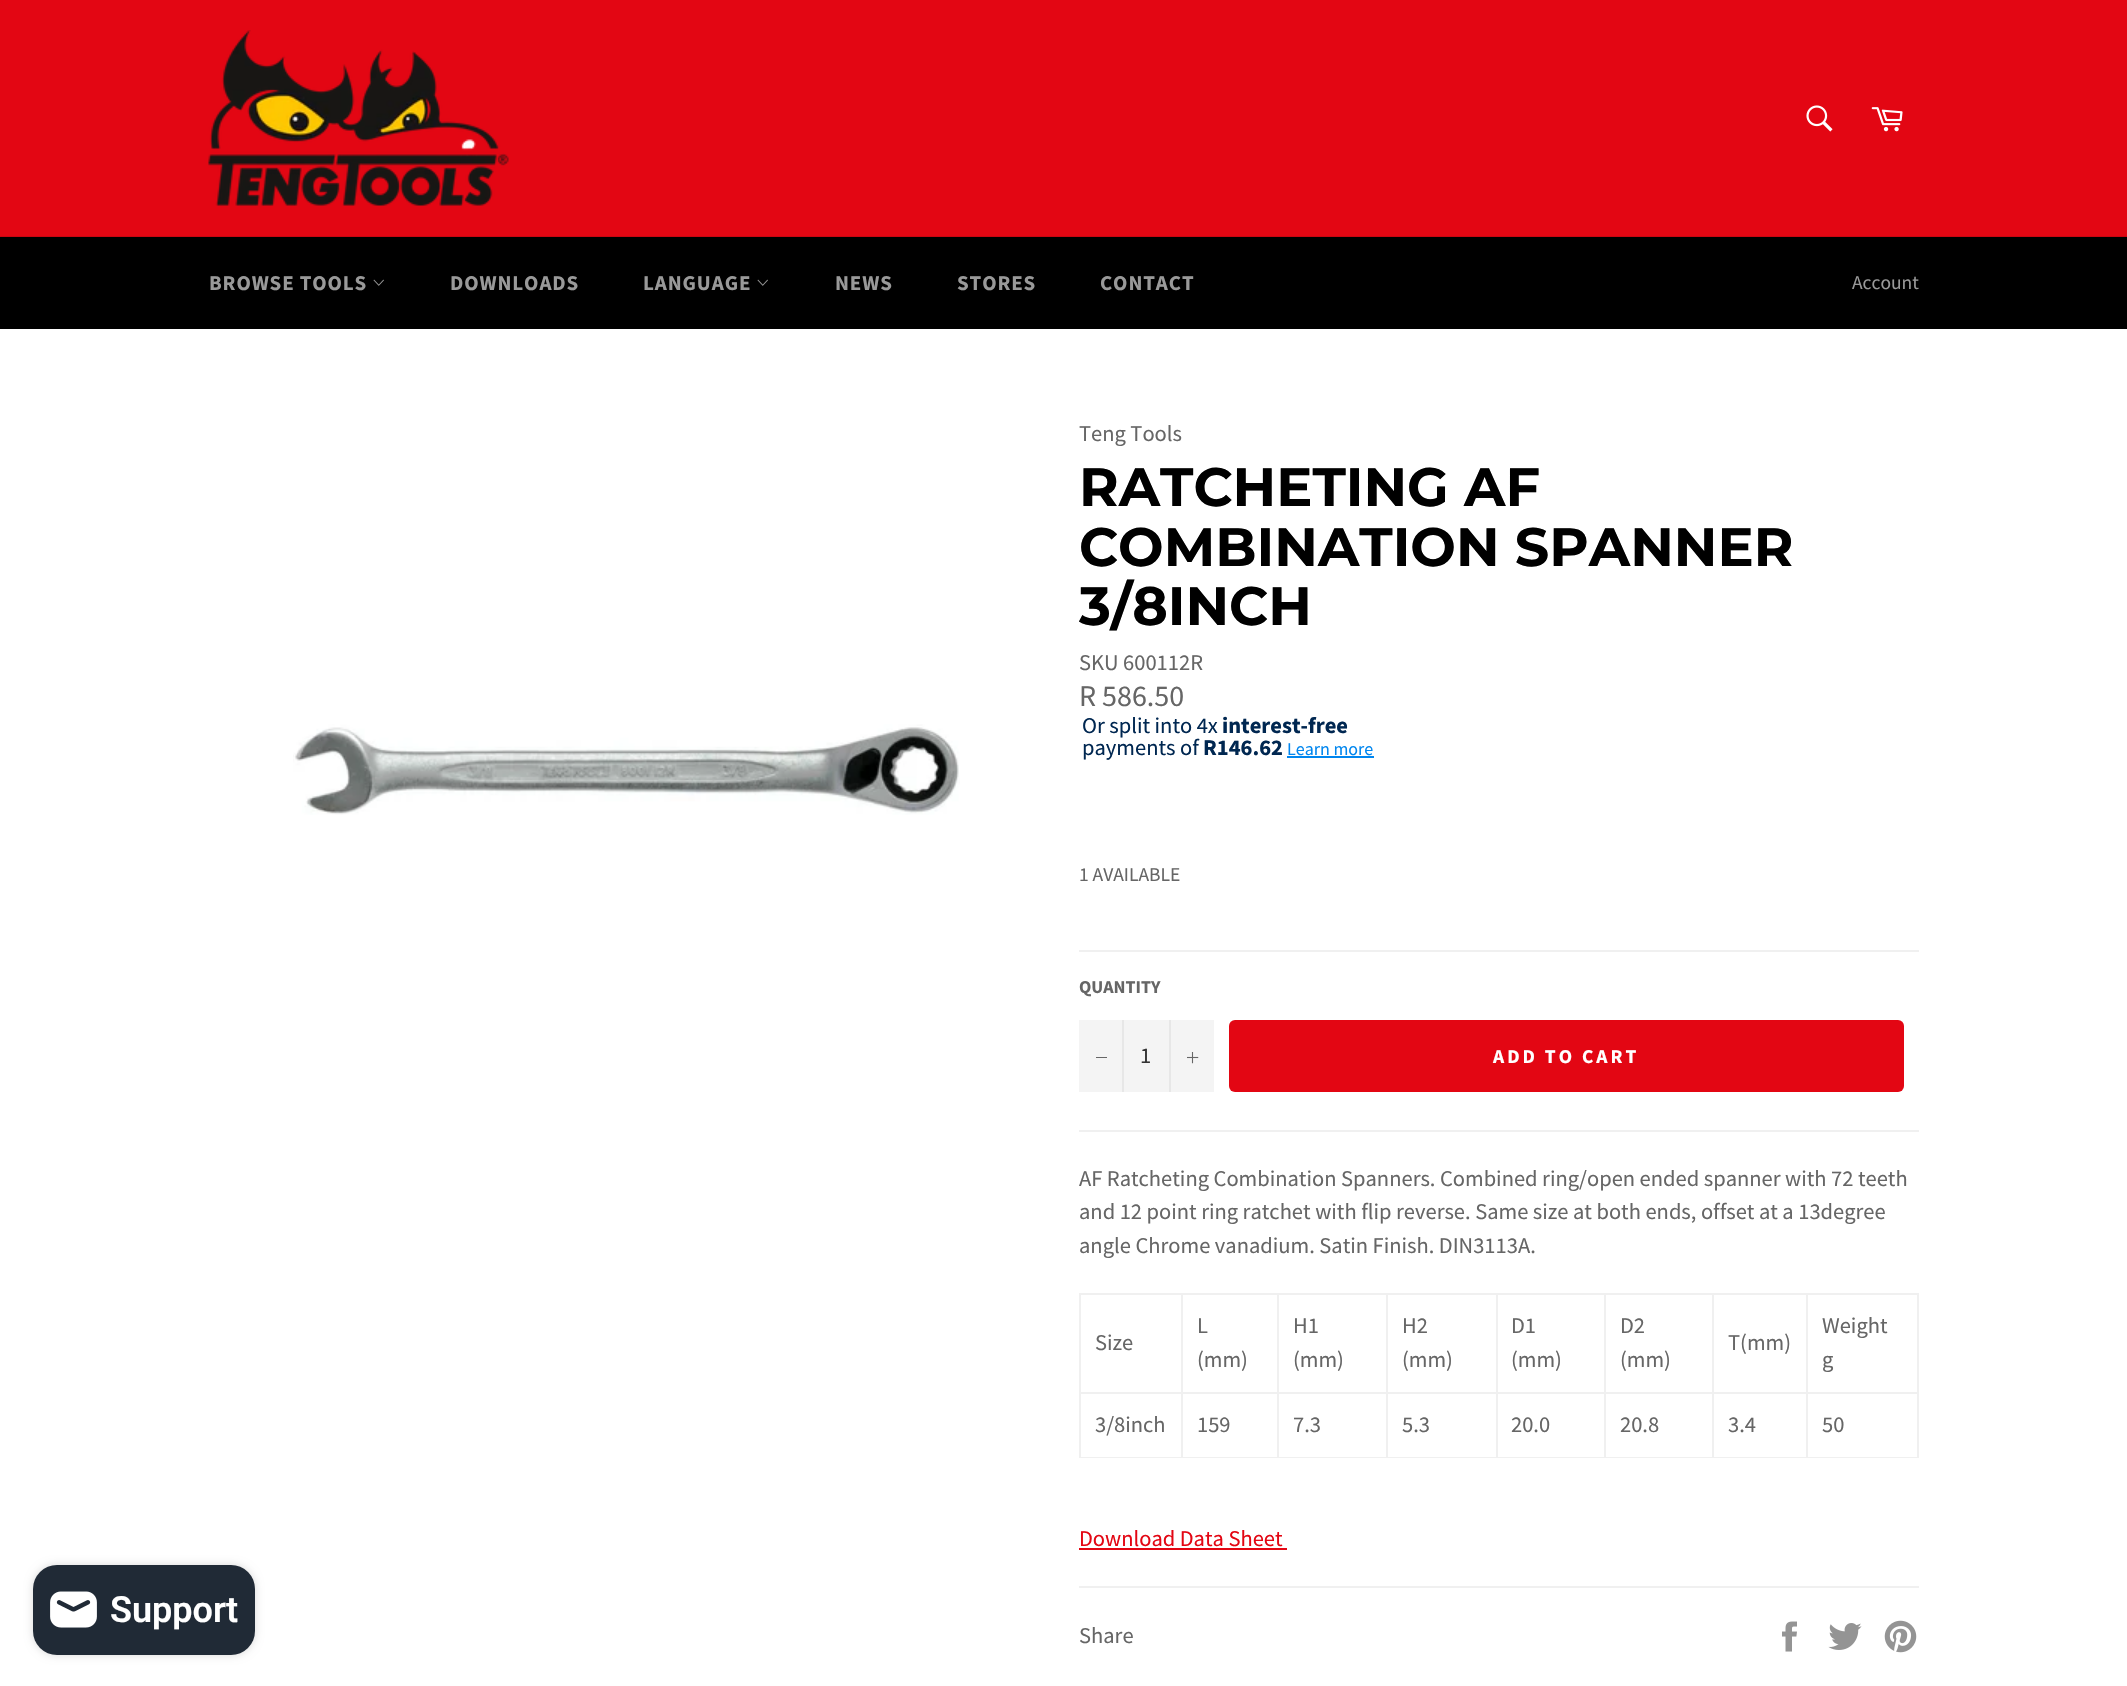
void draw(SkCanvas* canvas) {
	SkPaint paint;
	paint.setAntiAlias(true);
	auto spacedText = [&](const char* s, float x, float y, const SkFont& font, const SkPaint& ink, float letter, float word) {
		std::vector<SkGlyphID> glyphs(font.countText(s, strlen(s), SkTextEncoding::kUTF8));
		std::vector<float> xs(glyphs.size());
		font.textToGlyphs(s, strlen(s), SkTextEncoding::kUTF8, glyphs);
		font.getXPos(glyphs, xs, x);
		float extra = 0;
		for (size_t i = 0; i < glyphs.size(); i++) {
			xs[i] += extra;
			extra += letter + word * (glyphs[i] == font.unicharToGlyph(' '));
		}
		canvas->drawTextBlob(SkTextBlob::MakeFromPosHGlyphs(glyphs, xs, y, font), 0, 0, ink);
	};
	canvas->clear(0xffe30613);
	canvas->drawImageRect(SkImages::DeferredFromEncodedData(SkData::MakeFromFileName("img1.png")), SkRect::MakeXYWH(208, 30, 301, 176), SkSamplingOptions());
	canvas->drawImageRect(SkImages::DeferredFromEncodedData(SkData::MakeFromFileName("img2.png")), SkRect::MakeXYWH(1806, 105, 27, 27), SkSamplingOptions());
	canvas->drawImageRect(SkImages::DeferredFromEncodedData(SkData::MakeFromFileName("img3.png")), SkRect::MakeXYWH(1871, 107, 32, 25), SkSamplingOptions());
	paint.setColor(0xffca0511);
	canvas->drawRect(SkRect::MakeXYWH(0, 236, 2127, 1), paint);
	paint.setColor(0xff000000);
	canvas->drawRect(SkRect::MakeXYWH(0, 237, 2127, 92), paint);
	SkFont f1(fontMgr->matchFamilyStyle("Source Sans Pro", SkFontStyle::Bold()), 21);
	f1.setSubpixel(true);
	paint.setColor(0xff999999);
	spacedText("BROWSE TOOLS", 209, 290, f1, paint, 0.9, 0);
	canvas->drawImageRect(SkImages::DeferredFromEncodedData(SkData::MakeFromFileName("img4.png")), SkRect::MakeXYWH(373, 279, 11, 7), SkSamplingOptions());
	spacedText("DOWNLOADS", 450, 290, f1, paint, 0.9, 0);
	spacedText("LANGUAGE", 643, 290, f1, paint, 0.9, 0);
	canvas->drawImageRect(SkImages::DeferredFromEncodedData(SkData::MakeFromFileName("img4.png")), SkRect::MakeXYWH(757, 279, 11, 7), SkSamplingOptions());
	spacedText("NEWS", 835, 290, f1, paint, 0.9, 0);
	spacedText("STORES", 957, 290, f1, paint, 0.9, 0);
	spacedText("CONTACT", 1100, 290, f1, paint, 0.9, 0);
	SkFont f2(fontMgr->matchFamilyStyle("Source Sans Pro", SkFontStyle::Normal()), 19.5);
	f2.setSubpixel(true);
	canvas->drawString("Account", 1852, 289, f2, paint);
	paint.setColor(0xffffffff);
	canvas->drawRect(SkRect::MakeXYWH(0, 329, 2127, 1357), paint);
	paint.setColor(0x26000000);
	paint.setMaskFilter(SkMaskFilter::MakeBlur(kNormal_SkBlurStyle, 4));
	canvas->drawRoundRect(SkRect::MakeXYWH(33, 1565, 222, 90), 24, 24, paint);
	paint.setMaskFilter(nullptr);
	paint.setColor(0xff202a36);
	canvas->drawRoundRect(SkRect::MakeXYWH(33, 1565, 222, 90), 24, 24, paint);
	canvas->drawImageRect(SkImages::DeferredFromEncodedData(SkData::MakeFromFileName("img5.png")), SkRect::MakeXYWH(50, 1591, 47, 37), SkSamplingOptions());
	SkFont f3(fontMgr->matchFamilyStyle("Roboto", SkFontStyle(600, SkFontStyle::kNormal_Width, SkFontStyle::kUpright_Slant)), 36);
	f3.setSubpixel(true);
	paint.setColor(0xffffffff);
	canvas->drawString("Support", 110, 1622, f3, paint);
	canvas->drawImageRect(SkImages::DeferredFromEncodedData(SkData::MakeFromFileName("img6.png")), SkRect::MakeXYWH(293, 724, 667, 91), SkSamplingOptions());
	SkFont f4(fontMgr->matchFamilyStyle("Source Sans Pro", SkFontStyle::Normal()), 22.5);
	f4.setSubpixel(true);
	paint.setColor(0xff666666);
	canvas->drawString("Teng Tools", 1079, 441, f4, paint);
	SkFont f5(fontMgr->matchFamilyStyle("Montserrat", SkFontStyle::Bold()), 54);
	f5.setSubpixel(true);
	paint.setColor(0xff000000);
	canvas->drawString("RATCHETING AF", 1079, 506, f5, paint);
	canvas->drawString("COMBINATION SPANNER", 1079, 566, f5, paint);
	canvas->drawString("3/8INCH", 1079, 625, f5, paint);
	paint.setColor(0xff666666);
	canvas->drawString("SKU 600112R", 1079, 670, f4, paint);
	SkFont f6(fontMgr->matchFamilyStyle("Source Sans Pro", SkFontStyle::Normal()), 30);
	f6.setSubpixel(true);
	canvas->drawString("R 586.50", 1079, 706, f6, paint);
	paint.setColor(0xff002751);
	canvas->drawString("Or split into 4x", 1082, 733, f4, paint);
	SkFont f7(fontMgr->matchFamilyStyle("Source Sans Pro", SkFontStyle::Bold()), 22.5);
	f7.setSubpixel(true);
	canvas->drawString("interest-free", 1222, 733, f7, paint);
	canvas->drawString("payments of", 1082, 755, f4, paint);
	canvas->drawString("R146.62", 1203, 755, f7, paint);
	SkFont f8(fontMgr->matchFamilyStyle("Source Sans Pro", SkFontStyle::Normal()), 18);
	f8.setSubpixel(true);
	paint.setColor(0xff0086ef);
	canvas->drawString("Learn more", 1287, 755, f8, paint);
	canvas->drawRect(SkRect::MakeXYWH(1287, 756, 87, 2), paint);
	paint.setColor(0xff666666);
	canvas->drawString("1 AVAILABLE", 1079, 881, f2, paint);
	paint.setColor(0xfff0f0f0);
	canvas->drawRect(SkRect::MakeXYWH(1079, 950, 840, 2), paint);
	SkFont f9(fontMgr->matchFamilyStyle("Source Sans Pro", SkFontStyle::Bold()), 18);
	f9.setSubpixel(true);
	paint.setColor(0xff666666);
	canvas->drawString("QUANTITY", 1079, 993, f9, paint);
	paint.setColor(0xfff4f4f4);
	canvas->drawRect(SkRect::MakeXYWH(1079, 1020, 135, 72), paint);
	paint.setColor(0xffe7e7e7);
	canvas->drawRect(SkRect::MakeXYWH(1122, 1020, 2, 72), paint);
	paint.setColor(0xff666666);
	canvas->drawRect(SkRect::MakeXYWH(1096, 1057, 11, 1), paint);
	paint.setColor(0xff333333);
	canvas->drawString("1", 1140, 1063, f4, paint);
	paint.setColor(0xffe7e7e7);
	canvas->drawRect(SkRect::MakeXYWH(1169, 1020, 2, 72), paint);
	canvas->drawImageRect(SkImages::DeferredFromEncodedData(SkData::MakeFromFileName("img7.png")), SkRect::MakeXYWH(1187, 1052, 12, 12), SkSamplingOptions());
	paint.setColor(0xffe30613);
	canvas->drawRoundRect(SkRect::MakeXYWH(1229, 1020, 675, 72), 6, 6, paint);
	SkFont f10(fontMgr->matchFamilyStyle("Source Sans Pro", SkFontStyle::Bold()), 19.5);
	f10.setSubpixel(true);
	paint.setColor(0xffffffff);
	spacedText("ADD TO CART", 1493, 1063, f10, paint, 3, 0);
	paint.setColor(0xfff0f0f0);
	canvas->drawRect(SkRect::MakeXYWH(1079, 1130, 840, 2), paint);
	paint.setColor(0xff666666);
	canvas->drawString("AF Ratcheting Combination Spanners. Combined ring/open ended spanner with 72 teeth", 1079, 1186, f4, paint);
	canvas->drawString("and 12 point ring ratchet with flip reverse. Same size at both ends, offset at a 13degree", 1079, 1219, f4, paint);
	canvas->drawString("angle Chrome vanadium. Satin Finish. DIN3113A.", 1079, 1253, f4, paint);
	paint.setColor(0xfff0f0f0);
	canvas->drawRect(SkRect::MakeXYWH(1806, 1293, 113, 2), paint);
	canvas->drawRect(SkRect::MakeXYWH(1806, 1392, 113, 2), paint);
	canvas->drawRect(SkRect::MakeXYWH(1917, 1392, 2, 66), paint);
	canvas->drawRect(SkRect::MakeXYWH(1806, 1457, 113, 1), paint);
	canvas->drawRect(SkRect::MakeXYWH(1806, 1392, 2, 66), paint);
	canvas->drawRect(SkRect::MakeXYWH(1712, 1392, 96, 2), paint);
	canvas->drawRect(SkRect::MakeXYWH(1806, 1293, 2, 101), paint);
	canvas->drawRect(SkRect::MakeXYWH(1712, 1293, 96, 2), paint);
	canvas->drawRect(SkRect::MakeXYWH(1712, 1457, 96, 1), paint);
	canvas->drawRect(SkRect::MakeXYWH(1712, 1392, 2, 66), paint);
	canvas->drawRect(SkRect::MakeXYWH(1604, 1392, 109, 2), paint);
	canvas->drawRect(SkRect::MakeXYWH(1712, 1293, 2, 101), paint);
	canvas->drawRect(SkRect::MakeXYWH(1604, 1293, 109, 2), paint);
	canvas->drawRect(SkRect::MakeXYWH(1604, 1457, 109, 1), paint);
	canvas->drawRect(SkRect::MakeXYWH(1604, 1392, 2, 66), paint);
	canvas->drawRect(SkRect::MakeXYWH(1496, 1392, 109, 2), paint);
	canvas->drawRect(SkRect::MakeXYWH(1604, 1293, 2, 101), paint);
	canvas->drawRect(SkRect::MakeXYWH(1496, 1293, 109, 2), paint);
	canvas->drawRect(SkRect::MakeXYWH(1496, 1457, 109, 1), paint);
	canvas->drawRect(SkRect::MakeXYWH(1496, 1392, 2, 66), paint);
	canvas->drawRect(SkRect::MakeXYWH(1386, 1392, 111, 2), paint);
	canvas->drawRect(SkRect::MakeXYWH(1496, 1293, 2, 101), paint);
	canvas->drawRect(SkRect::MakeXYWH(1386, 1293, 111, 2), paint);
	canvas->drawRect(SkRect::MakeXYWH(1386, 1457, 111, 1), paint);
	canvas->drawRect(SkRect::MakeXYWH(1386, 1392, 2, 66), paint);
	canvas->drawRect(SkRect::MakeXYWH(1277, 1392, 111, 2), paint);
	canvas->drawRect(SkRect::MakeXYWH(1386, 1293, 2, 101), paint);
	canvas->drawRect(SkRect::MakeXYWH(1277, 1293, 111, 2), paint);
	canvas->drawRect(SkRect::MakeXYWH(1277, 1457, 111, 1), paint);
	canvas->drawRect(SkRect::MakeXYWH(1277, 1392, 2, 66), paint);
	canvas->drawRect(SkRect::MakeXYWH(1181, 1392, 97, 2), paint);
	canvas->drawRect(SkRect::MakeXYWH(1277, 1293, 2, 101), paint);
	canvas->drawRect(SkRect::MakeXYWH(1181, 1293, 97, 2), paint);
	canvas->drawRect(SkRect::MakeXYWH(1181, 1457, 97, 1), paint);
	canvas->drawRect(SkRect::MakeXYWH(1181, 1392, 2, 66), paint);
	canvas->drawRect(SkRect::MakeXYWH(1079, 1392, 103, 2), paint);
	canvas->drawRect(SkRect::MakeXYWH(1181, 1293, 2, 101), paint);
	canvas->drawRect(SkRect::MakeXYWH(1079, 1293, 103, 2), paint);
	canvas->drawRect(SkRect::MakeXYWH(1079, 1457, 103, 1), paint);
	canvas->drawRect(SkRect::MakeXYWH(1079, 1392, 2, 66), paint);
	canvas->drawRect(SkRect::MakeXYWH(1079, 1293, 2, 101), paint);
	paint.setColor(0xff666666);
	canvas->drawString("Size", 1095, 1350, f4, paint);
	canvas->drawString("L", 1197, 1333, f4, paint);
	canvas->drawString("(mm)", 1197, 1367, f4, paint);
	canvas->drawString("H1", 1293, 1333, f4, paint);
	canvas->drawString("(mm)", 1293, 1367, f4, paint);
	canvas->drawString("H2", 1402, 1333, f4, paint);
	canvas->drawString("(mm)", 1402, 1367, f4, paint);
	canvas->drawString("D1", 1511, 1333, f4, paint);
	canvas->drawString("(mm)", 1511, 1367, f4, paint);
	canvas->drawString("D2", 1620, 1333, f4, paint);
	canvas->drawString("(mm)", 1620, 1367, f4, paint);
	canvas->drawString("T(mm)", 1728, 1350, f4, paint);
	paint.setColor(0xfff0f0f0);
	canvas->drawRect(SkRect::MakeXYWH(1917, 1293, 2, 101), paint);
	paint.setColor(0xff666666);
	canvas->drawString("Weight", 1822, 1333, f4, paint);
	canvas->drawString("g", 1822, 1367, f4, paint);
	canvas->drawString("3/8inch", 1095, 1432, f4, paint);
	canvas->drawString("159", 1197, 1432, f4, paint);
	canvas->drawString("7.3", 1293, 1432, f4, paint);
	canvas->drawString("5.3", 1402, 1432, f4, paint);
	canvas->drawString("20.0", 1511, 1432, f4, paint);
	canvas->drawString("20.8", 1620, 1432, f4, paint);
	canvas->drawString("3.4", 1728, 1432, f4, paint);
	canvas->drawString("50", 1822, 1432, f4, paint);
	paint.setColor(0xffe30613);
	canvas->drawString("Download Data Sheet", 1079, 1546, f4, paint);
	canvas->drawRect(SkRect::MakeXYWH(1079, 1548, 208, 2), paint);
	paint.setColor(0xfff0f0f0);
	canvas->drawRect(SkRect::MakeXYWH(1079, 1586, 840, 2), paint);
	paint.setColor(0xff666666);
	canvas->drawString("Share", 1079, 1643, f4, paint);
	canvas->drawImageRect(SkImages::DeferredFromEncodedData(SkData::MakeFromFileName("img8.png")), SkRect::MakeXYWH(1782, 1621, 15, 31), SkSamplingOptions());
	canvas->drawImageRect(SkImages::DeferredFromEncodedData(SkData::MakeFromFileName("img9.png")), SkRect::MakeXYWH(1828, 1623, 34, 27), SkSamplingOptions());
	canvas->drawImageRect(SkImages::DeferredFromEncodedData(SkData::MakeFromFileName("img10.png")), SkRect::MakeXYWH(1884, 1620, 33, 33), SkSamplingOptions());
}
